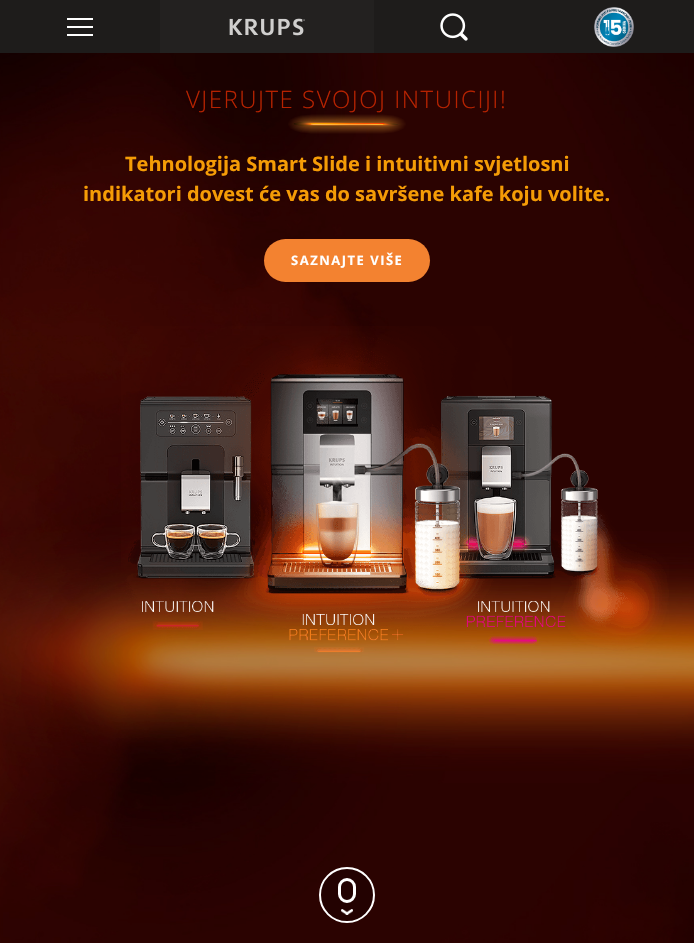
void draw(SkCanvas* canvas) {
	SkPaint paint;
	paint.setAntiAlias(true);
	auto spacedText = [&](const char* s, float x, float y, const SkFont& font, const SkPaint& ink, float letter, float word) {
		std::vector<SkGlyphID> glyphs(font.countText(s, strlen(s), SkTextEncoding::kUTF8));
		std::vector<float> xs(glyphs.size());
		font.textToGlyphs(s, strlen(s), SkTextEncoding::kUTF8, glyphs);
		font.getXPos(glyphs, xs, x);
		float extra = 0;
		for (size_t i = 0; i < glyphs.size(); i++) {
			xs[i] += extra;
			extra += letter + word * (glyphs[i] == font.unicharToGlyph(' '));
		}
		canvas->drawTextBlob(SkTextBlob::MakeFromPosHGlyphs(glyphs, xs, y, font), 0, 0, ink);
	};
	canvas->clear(0xffffffff);
	paint.setColor(0xff1e1c1b);
	canvas->drawRect(SkRect::MakeXYWH(0, 0, 160, 53), paint);
	paint.setColor(0xffffffff);
	canvas->drawRect(SkRect::MakeXYWH(67, 26, 26, 2), paint);
	canvas->drawRect(SkRect::MakeXYWH(67, 18, 26, 2), paint);
	canvas->drawRect(SkRect::MakeXYWH(67, 34, 26, 2), paint);
	paint.setColor(0xff232120);
	canvas->drawRect(SkRect::MakeXYWH(160, 0, 214, 53), paint);
	canvas->drawImageRect(SkImages::DeferredFromEncodedData(SkData::MakeFromFileName("img1.png")), SkRect::MakeXYWH(229, 18, 76, 18), SkSamplingOptions());
	paint.setColor(0xff1e1c1b);
	canvas->drawRect(SkRect::MakeXYWH(374, 0, 320, 53), paint);
	canvas->drawImageRect(SkImages::DeferredFromEncodedData(SkData::MakeFromFileName("img2.png")), SkRect::MakeXYWH(440, 13, 28, 28), SkSamplingOptions());
	canvas->drawImageRect(SkImages::DeferredFromEncodedData(SkData::MakeFromFileName("img3.png")), SkRect::MakeXYWH(594, 7, 40, 40), SkSamplingOptions());
	canvas->drawImageRect(SkImages::DeferredFromEncodedData(SkData::MakeFromFileName("img4.png")), SkRect::MakeXYWH(0, 53, 694, 890), SkSamplingOptions());
	canvas->drawImageRect(SkImages::DeferredFromEncodedData(SkData::MakeFromFileName("img5.png")), SkRect::MakeXYWH(288, 114, 118, 20), SkSamplingOptions());
	SkFont f1(fontMgr->matchFamilyStyle("Open Sans", SkFontStyle(300, SkFontStyle::kNormal_Width, SkFontStyle::kUpright_Slant)), 24);
	f1.setSubpixel(true);
	paint.setColor(0xffb72200);
	spacedText("VJERUJTE SVOJOJ INTUICIJI!", 186, 108, f1, paint, 1.5, 0);
	SkFont f2(fontMgr->matchFamilyStyle("Open Sans", SkFontStyle::Bold()), 20);
	f2.setSubpixel(true);
	paint.setColor(0xfff59c06);
	canvas->drawString("Tehnologija Smart Slide i intuitivni svjetlosni", 125, 171, f2, paint);
	canvas->drawString("indikatori dovest će vas do savršene kafe koju volite.", 83, 201, f2, paint);
	paint.setColor(0xfff38230);
	canvas->drawRoundRect(SkRect::MakeXYWH(264, 239, 166, 43), 21.5, 21.5, paint);
	SkFont f3(fontMgr->matchFamilyStyle("Open Sans", SkFontStyle::Bold()), 13);
	f3.setSubpixel(true);
	paint.setColor(0xffffffff);
	spacedText("SAZNAJTE VIŠE", 291, 265, f3, paint, 1.5, 0);
	canvas->drawImageRect(SkImages::DeferredFromEncodedData(SkData::MakeFromFileName("img6.png")), SkRect::MakeXYWH(121, 326, 548, 327), SkSamplingOptions());
	paint.setColor(0xff230201);
	canvas->drawCircle(347, 895, 27, paint);
	paint.setStroke(true);
	paint.setStrokeWidth(2);
	paint.setColor(0xffffffff);
	canvas->drawCircle(347, 895, 27, paint);
	paint.setStrokeWidth(3);
	canvas->drawRoundRect(SkRect::MakeXYWH(339.5, 879.5, 15, 22), 7.5, 7.5, paint);
	canvas->drawImageRect(SkImages::DeferredFromEncodedData(SkData::MakeFromFileName("img7.png")), SkRect::MakeXYWH(341, 909, 12, 6), SkSamplingOptions());
}
